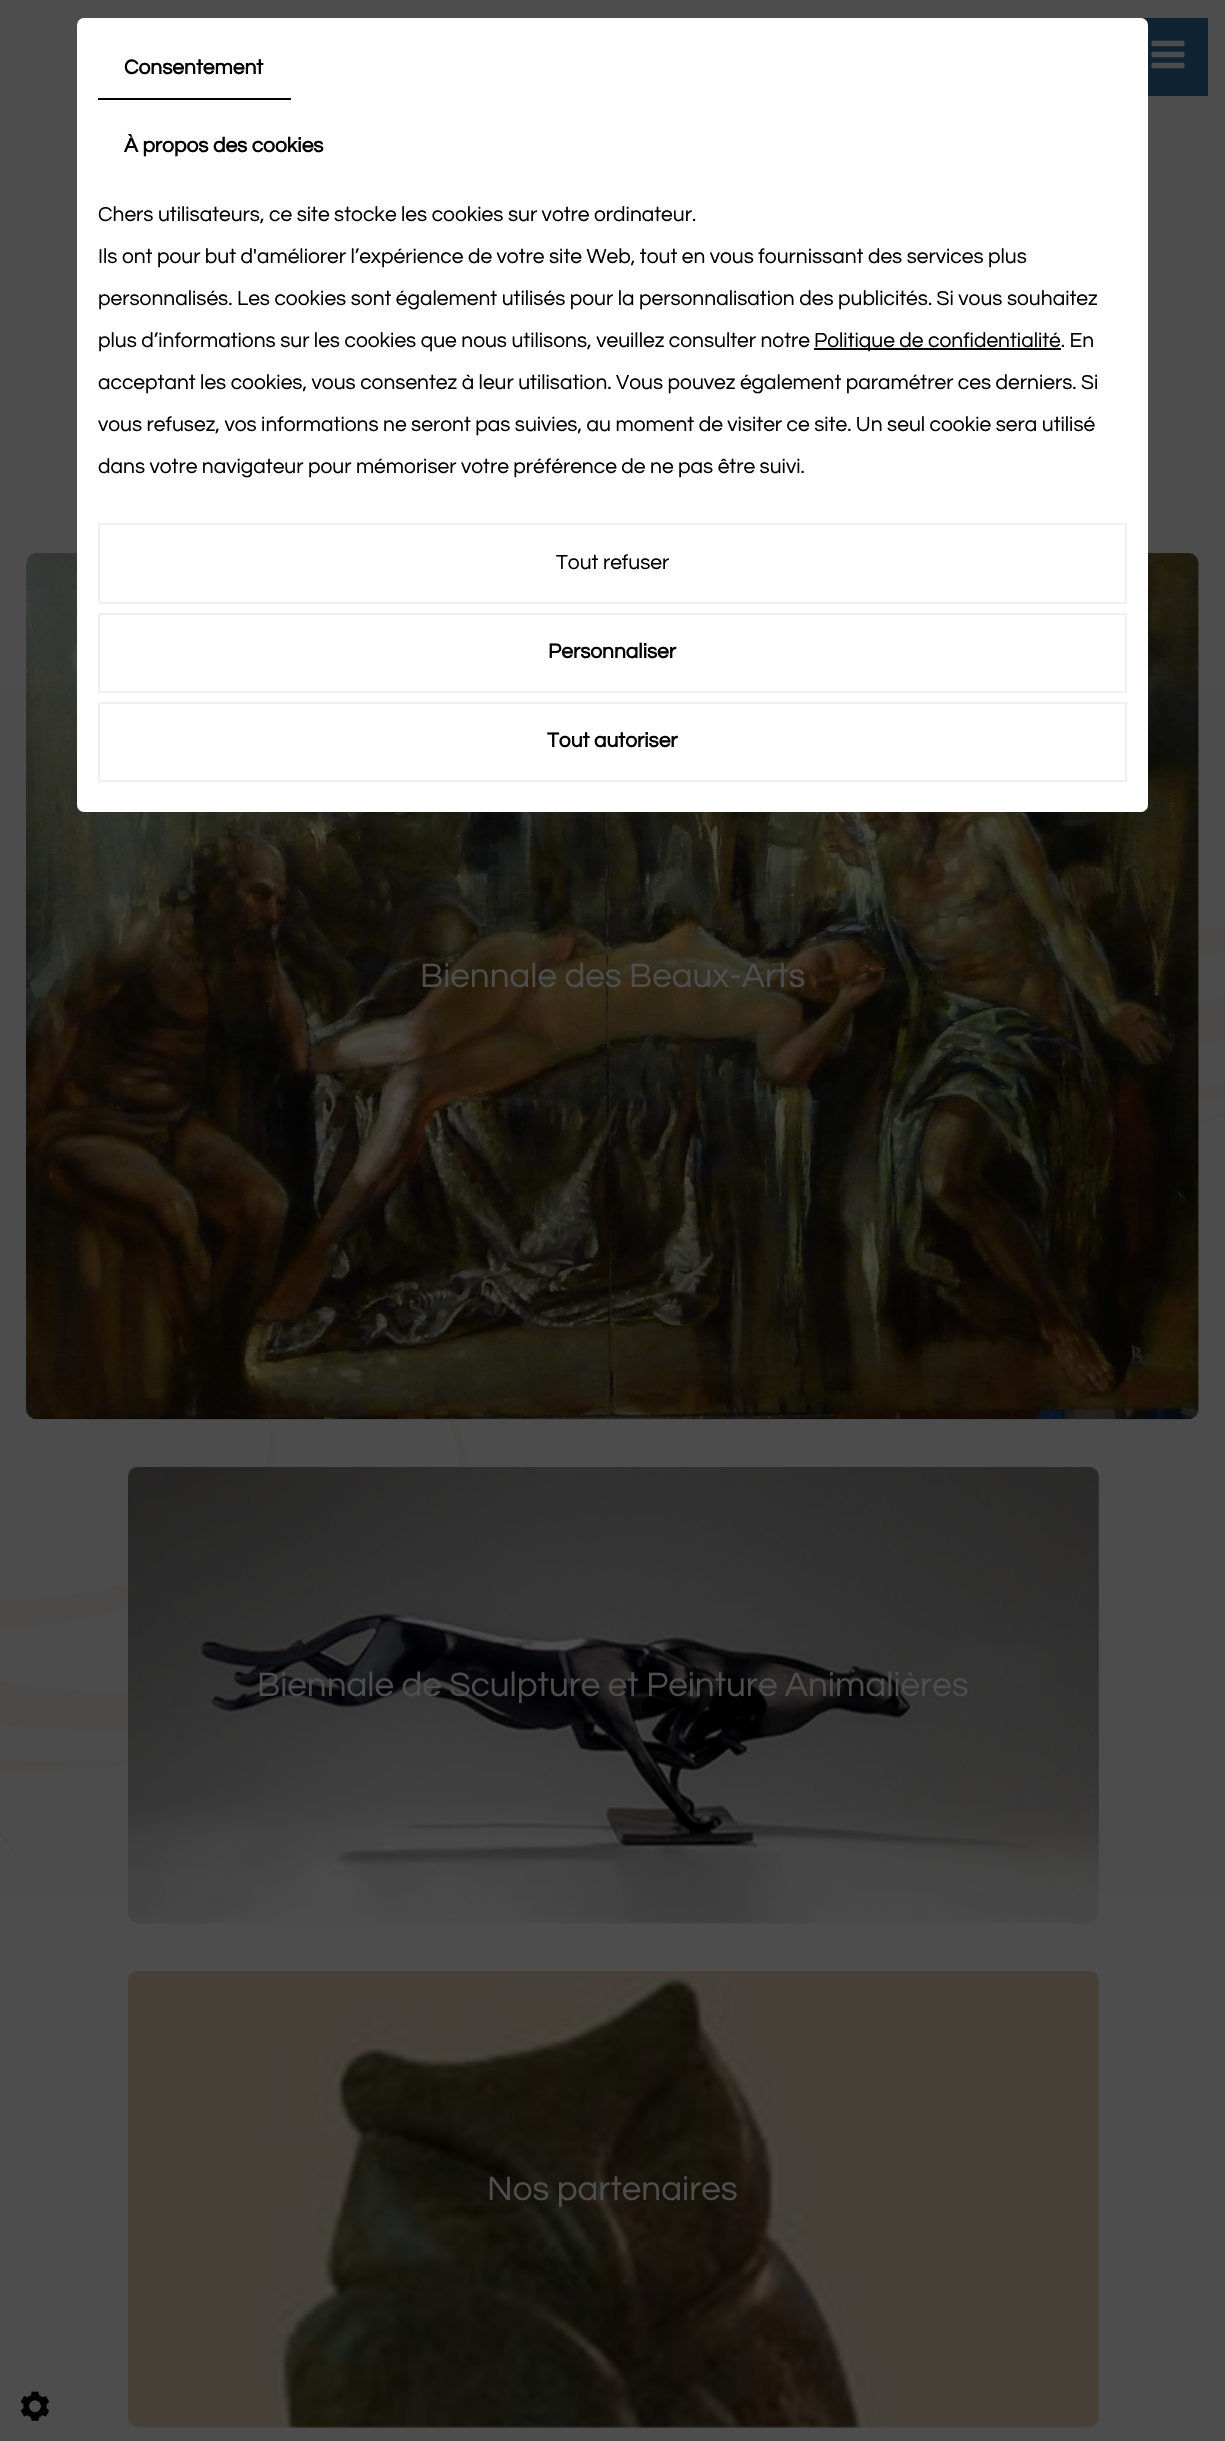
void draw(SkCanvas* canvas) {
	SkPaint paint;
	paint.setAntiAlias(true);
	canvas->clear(0xff4d4d4d);
	canvas->drawImageRect(SkImages::DeferredFromEncodedData(SkData::MakeFromFileName("img1.png")), SkRect::MakeXYWH(0, 687, 1225, 1203), SkSamplingOptions());
	paint.setColor(0xff0f2332);
	canvas->drawRect(SkRect::MakeXYWH(1141, 18, 67, 78), paint);
	canvas->drawImageRect(SkImages::DeferredFromEncodedData(SkData::MakeFromFileName("img3.png")), SkRect::MakeXYWH(26, 553, 1173, 867), SkSamplingOptions());
	paint.setColor(0xffffffff);
	canvas->drawRoundRect(SkRect::MakeXYWH(77, 18, 1071, 794), 7, 7, paint);
	paint.setColor(0xff000000);
	canvas->drawRect(SkRect::MakeXYWH(98, 98, 193, 2), paint);
	SkFont f1(fontMgr->matchFamilyStyle("Questrial", SkFontStyle::Bold()), 21);
	f1.setSubpixel(true);
	canvas->drawString("Consentement", 124, 74, f1, paint);
	canvas->drawString("À propos des cookies", 124, 152, f1, paint);
	SkFont f2(fontMgr->matchFamilyStyle("Questrial", SkFontStyle::Normal()), 21);
	f2.setSubpixel(true);
	canvas->drawString("Chers utilisateurs, ce site stocke les cookies sur votre ordinateur.", 98, 221, f2, paint);
	canvas->drawString("Ils ont pour but d'améliorer l’expérience de votre site Web, tout en vous fournissant des services plus", 98, 263, f2, paint);
	canvas->drawString("personnalisés. Les cookies sont également utilisés pour la personnalisation des publicités. Si vous souhaitez", 98, 305, f2, paint);
	canvas->drawString("plus d’informations sur les cookies que nous utilisons, veuillez consulter notre", 98, 347, f2, paint);
	canvas->drawRect(SkRect::MakeXYWH(814, 348, 247, 2), paint);
	canvas->drawString("Politique de confidentialité. En", 814, 347, f2, paint);
	canvas->drawString("acceptant les cookies, vous consentez à leur utilisation. Vous pouvez également paramétrer ces derniers. Si", 98, 389, f2, paint);
	canvas->drawString("vous refusez, vos informations ne seront pas suivies, au moment de visiter ce site. Un seul cookie sera utilisé", 98, 431, f2, paint);
	canvas->drawString("dans votre navigateur pour mémoriser votre préférence de ne pas être suivi.", 98, 473, f2, paint);
	paint.setStroke(true);
	paint.setStrokeWidth(2);
	paint.setColor(0xfff0f0f0);
	canvas->drawRect(SkRect::MakeXYWH(99, 524, 1027, 79), paint);
	paint.setStroke(false);
	paint.setColor(0xff000000);
	canvas->drawString("Tout refuser", 556, 569, f2, paint);
	paint.setStroke(true);
	paint.setColor(0xfff0f0f0);
	canvas->drawRect(SkRect::MakeXYWH(99, 614, 1027, 78), paint);
	paint.setStroke(false);
	paint.setColor(0xff000000);
	canvas->drawString("Personnaliser", 548, 658, f1, paint);
	paint.setStroke(true);
	paint.setColor(0xfff0f0f0);
	canvas->drawRect(SkRect::MakeXYWH(99, 703, 1027, 78), paint);
	paint.setStroke(false);
	paint.setColor(0xff000000);
	canvas->drawString("Tout autoriser", 547, 747, f1, paint);
	canvas->drawImageRect(SkImages::DeferredFromEncodedData(SkData::MakeFromFileName("img2.png")), SkRect::MakeXYWH(1151, 40, 34, 29), SkSamplingOptions());
	SkFont f3(fontMgr->matchFamilyStyle("Questrial", SkFontStyle::Normal()), 35);
	f3.setSubpixel(true);
	paint.setColor(0xff4d4d4d);
	canvas->drawString("Biennale des Beaux-Arts", 420, 987, f3, paint);
	canvas->drawImageRect(SkImages::DeferredFromEncodedData(SkData::MakeFromFileName("img4.png")), SkRect::MakeXYWH(128, 1467, 972, 457), SkSamplingOptions());
	canvas->drawString("Biennale de Sculpture et Peinture Animalières", 257, 1696, f3, paint);
	canvas->drawImageRect(SkImages::DeferredFromEncodedData(SkData::MakeFromFileName("img5.png")), SkRect::MakeXYWH(128, 1971, 972, 457), SkSamplingOptions());
	canvas->drawString("Nos partenaires", 487, 2200, f3, paint);
	canvas->drawImageRect(SkImages::DeferredFromEncodedData(SkData::MakeFromFileName("img6.png")), SkRect::MakeXYWH(20, 2391, 30, 30), SkSamplingOptions());
}
